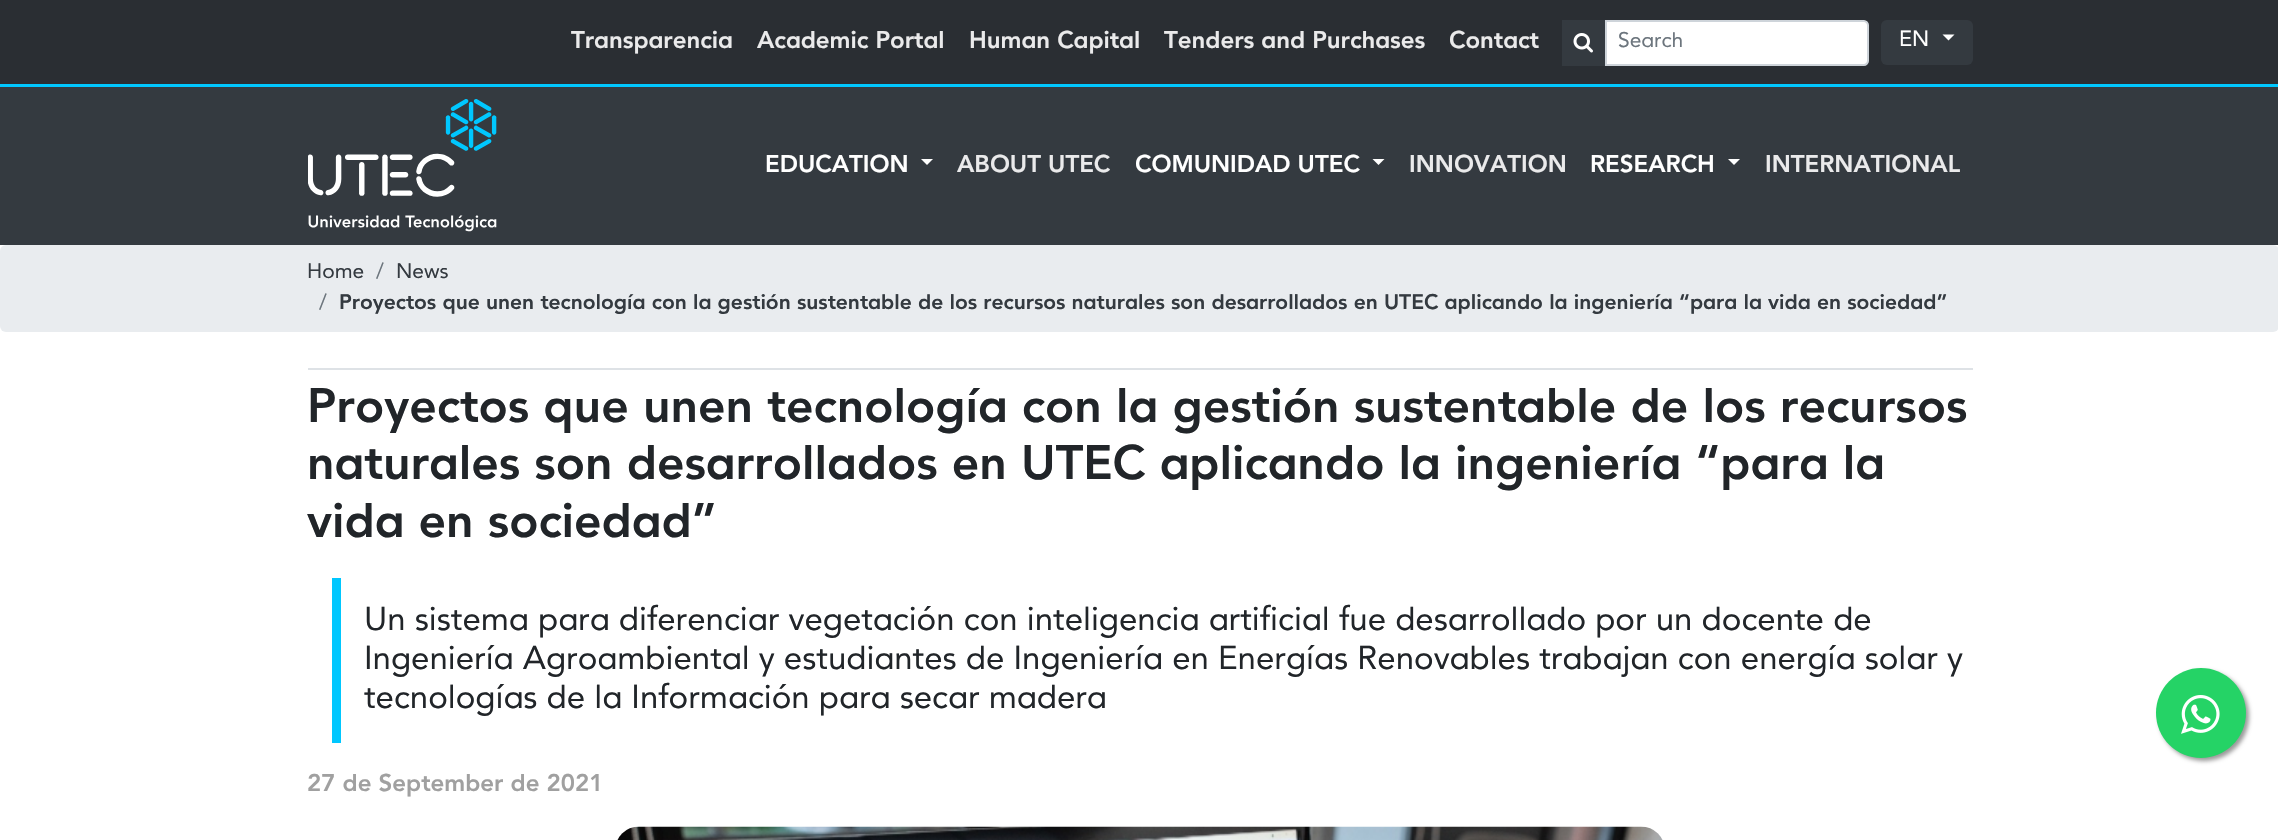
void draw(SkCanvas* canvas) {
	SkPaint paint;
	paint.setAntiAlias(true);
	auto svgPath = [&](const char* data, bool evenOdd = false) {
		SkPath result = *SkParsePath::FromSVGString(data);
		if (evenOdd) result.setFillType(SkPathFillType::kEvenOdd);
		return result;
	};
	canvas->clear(0xffffffff);
	paint.setColor(0xff343a40);
	canvas->drawRect(SkRect::MakeXYWH(0, 87, 2278, 158), paint);
	paint.setColor(0xff2a2e33);
	canvas->drawRect(SkRect::MakeXYWH(0, 0, 2278, 84), paint);
	paint.setColor(0xff00c7ff);
	canvas->drawRect(SkRect::MakeXYWH(0, 84, 2278, 3), paint);
	SkFont f1(fontMgr->matchFamilyStyle("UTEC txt", SkFontStyle(900, SkFontStyle::kNormal_Width, SkFontStyle::kUpright_Slant)), 24);
	f1.setSubpixel(true);
	paint.setColor(0xffeaeaeb);
	canvas->drawString("Transparencia", 571, 48, f1, paint);
	canvas->drawString("Academic Portal", 757, 48, f1, paint);
	canvas->drawString("Human Capital", 969, 48, f1, paint);
	canvas->drawString("Tenders and Purchases", 1164, 48, f1, paint);
	canvas->drawString("Contact", 1449, 48, f1, paint);
	paint.setColor(0xff343a40);
	canvas->drawRect(SkRect::MakeXYWH(1562, 20, 43, 46), paint);
	canvas->drawImageRect(SkImages::DeferredFromEncodedData(SkData::MakeFromFileName("img1.png")), SkRect::MakeXYWH(1573, 33, 20, 20), SkSamplingOptions());
	paint.setColor(0xffffffff);
	canvas->drawPath(svgPath("M1606 21H1864C1866 21 1868 23 1868 25V61C1868 63 1866 65 1864 65H1606Z"), paint);
	paint.setStroke(true);
	paint.setStrokeWidth(2);
	paint.setColor(0xffced4da);
	canvas->drawPath(svgPath("M1606 21H1864C1866 21 1868 23 1868 25V61C1868 63 1866 65 1864 65H1606Z"), paint);
	SkFont f2(fontMgr->matchFamilyStyle("UTEC txt", SkFontStyle::Normal()), 21);
	f2.setSubpixel(true);
	paint.setStroke(false);
	paint.setColor(0xff6c757d);
	canvas->drawString("Search", 1618, 47, f2, paint);
	paint.setColor(0xff343a40);
	canvas->drawRoundRect(SkRect::MakeXYWH(1881, 20, 92, 45), 6, 6, paint);
	SkFont f3(fontMgr->matchFamilyStyle("UTEC txt", SkFontStyle::Normal()), 22);
	f3.setSubpixel(true);
	paint.setColor(0xffffffff);
	canvas->drawString("EN", 1899, 46, f3, paint);
	canvas->drawPath(svgPath("M1942.5 34.5H1954.5L1948.5 40.5Z"), paint);
	canvas->drawImageRect(SkImages::DeferredFromEncodedData(SkData::MakeFromFileName("img2.png")), SkRect::MakeXYWH(308, 99, 189, 133), SkSamplingOptions());
	canvas->drawString("EDUCATION", 765, 172, f1, paint);
	canvas->drawPath(svgPath("M921 159H933L927 165Z"), paint);
	paint.setColor(0xffeaeaeb);
	canvas->drawString("ABOUT UTEC", 957, 172, f1, paint);
	paint.setColor(0xffffffff);
	canvas->drawString("COMUNIDAD UTEC", 1135, 172, f1, paint);
	canvas->drawPath(svgPath("M1372.5 159H1384.5L1378.5 165Z"), paint);
	paint.setColor(0xffeaeaeb);
	canvas->drawString("INNOVATION", 1409, 172, f1, paint);
	paint.setColor(0xffffffff);
	canvas->drawString("RESEARCH", 1590, 172, f1, paint);
	canvas->drawPath(svgPath("M1728 159H1740L1734 165Z"), paint);
	paint.setColor(0xffeaeaeb);
	canvas->drawString("INTERNATIONAL", 1765, 172, f1, paint);
	paint.setColor(0xffe9ecef);
	canvas->drawRoundRect(SkRect::MakeXYWH(0, 245, 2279, 87), 6, 6, paint);
	paint.setColor(0xff343a40);
	canvas->drawString("Home", 307, 278, f2, paint);
	paint.setColor(0xff6c757d);
	canvas->drawString("/", 376, 278, f2, paint);
	paint.setColor(0xff343a40);
	canvas->drawString("News", 396, 278, f2, paint);
	paint.setColor(0xff6c757d);
	canvas->drawString("/", 319, 309, f2, paint);
	SkFont f4(fontMgr->matchFamilyStyle("UTEC txt", SkFontStyle(900, SkFontStyle::kNormal_Width, SkFontStyle::kUpright_Slant)), 21);
	f4.setSubpixel(true);
	paint.setColor(0xff343a40);
	canvas->drawString("Proyectos que unen tecnología con la gestión sustentable de los recursos naturales son desarrollados en UTEC aplicando la ingeniería “para la vida en sociedad”", 339, 309, f4, paint);
	paint.setColor(0xffdee2e6);
	canvas->drawRect(SkRect::MakeXYWH(308, 368, 1665, 2), paint);
	SkFont f5(fontMgr->matchFamilyStyle("UTEC txt", SkFontStyle(900, SkFontStyle::kNormal_Width, SkFontStyle::kUpright_Slant)), 48);
	f5.setSubpixel(true);
	paint.setColor(0xff212529);
	canvas->drawString("Proyectos que unen tecnología con la gestión sustentable de los recursos", 307, 422, f5, paint);
	canvas->drawString("naturales son desarrollados en UTEC aplicando la ingeniería “para la", 307, 479, f5, paint);
	canvas->drawString("vida en sociedad”", 307, 537, f5, paint);
	paint.setColor(0xff00c7ff);
	canvas->drawRect(SkRect::MakeXYWH(332, 578, 9, 165), paint);
	SkFont f6(fontMgr->matchFamilyStyle("UTEC txt", SkFontStyle::Normal()), 33);
	f6.setSubpixel(true);
	paint.setColor(0xff212529);
	canvas->drawString("Un sistema para diferenciar vegetación con inteligencia artificial fue desarrollado por un docente de", 364, 630, f6, paint);
	canvas->drawString("Ingeniería Agroambiental y estudiantes de Ingeniería en Energías Renovables trabajan con energía solar y", 364, 669, f6, paint);
	canvas->drawString("tecnologías de la Información para secar madera", 364, 708, f6, paint);
	paint.setColor(0xffa0a0a0);
	canvas->drawString("27 de September de 2021", 307, 791, f1, paint);
	canvas->drawImageRect(SkImages::DeferredFromEncodedData(SkData::MakeFromFileName("img3.png")), SkRect::MakeXYWH(617, 826, 1046, 14), SkSamplingOptions());
	paint.setColor(0xff999999);
	paint.setMaskFilter(SkMaskFilter::MakeBlur(kNormal_SkBlurStyle, 2));
	canvas->drawRoundRect(SkRect::MakeXYWH(2159, 671, 90, 90), 45, 45, paint);
	paint.setMaskFilter(nullptr);
	paint.setColor(0xff25d366);
	canvas->drawCircle(2201, 713, 45, paint);
	canvas->drawImageRect(SkImages::DeferredFromEncodedData(SkData::MakeFromFileName("img4.png")), SkRect::MakeXYWH(2181, 695, 39, 39), SkSamplingOptions());
}
